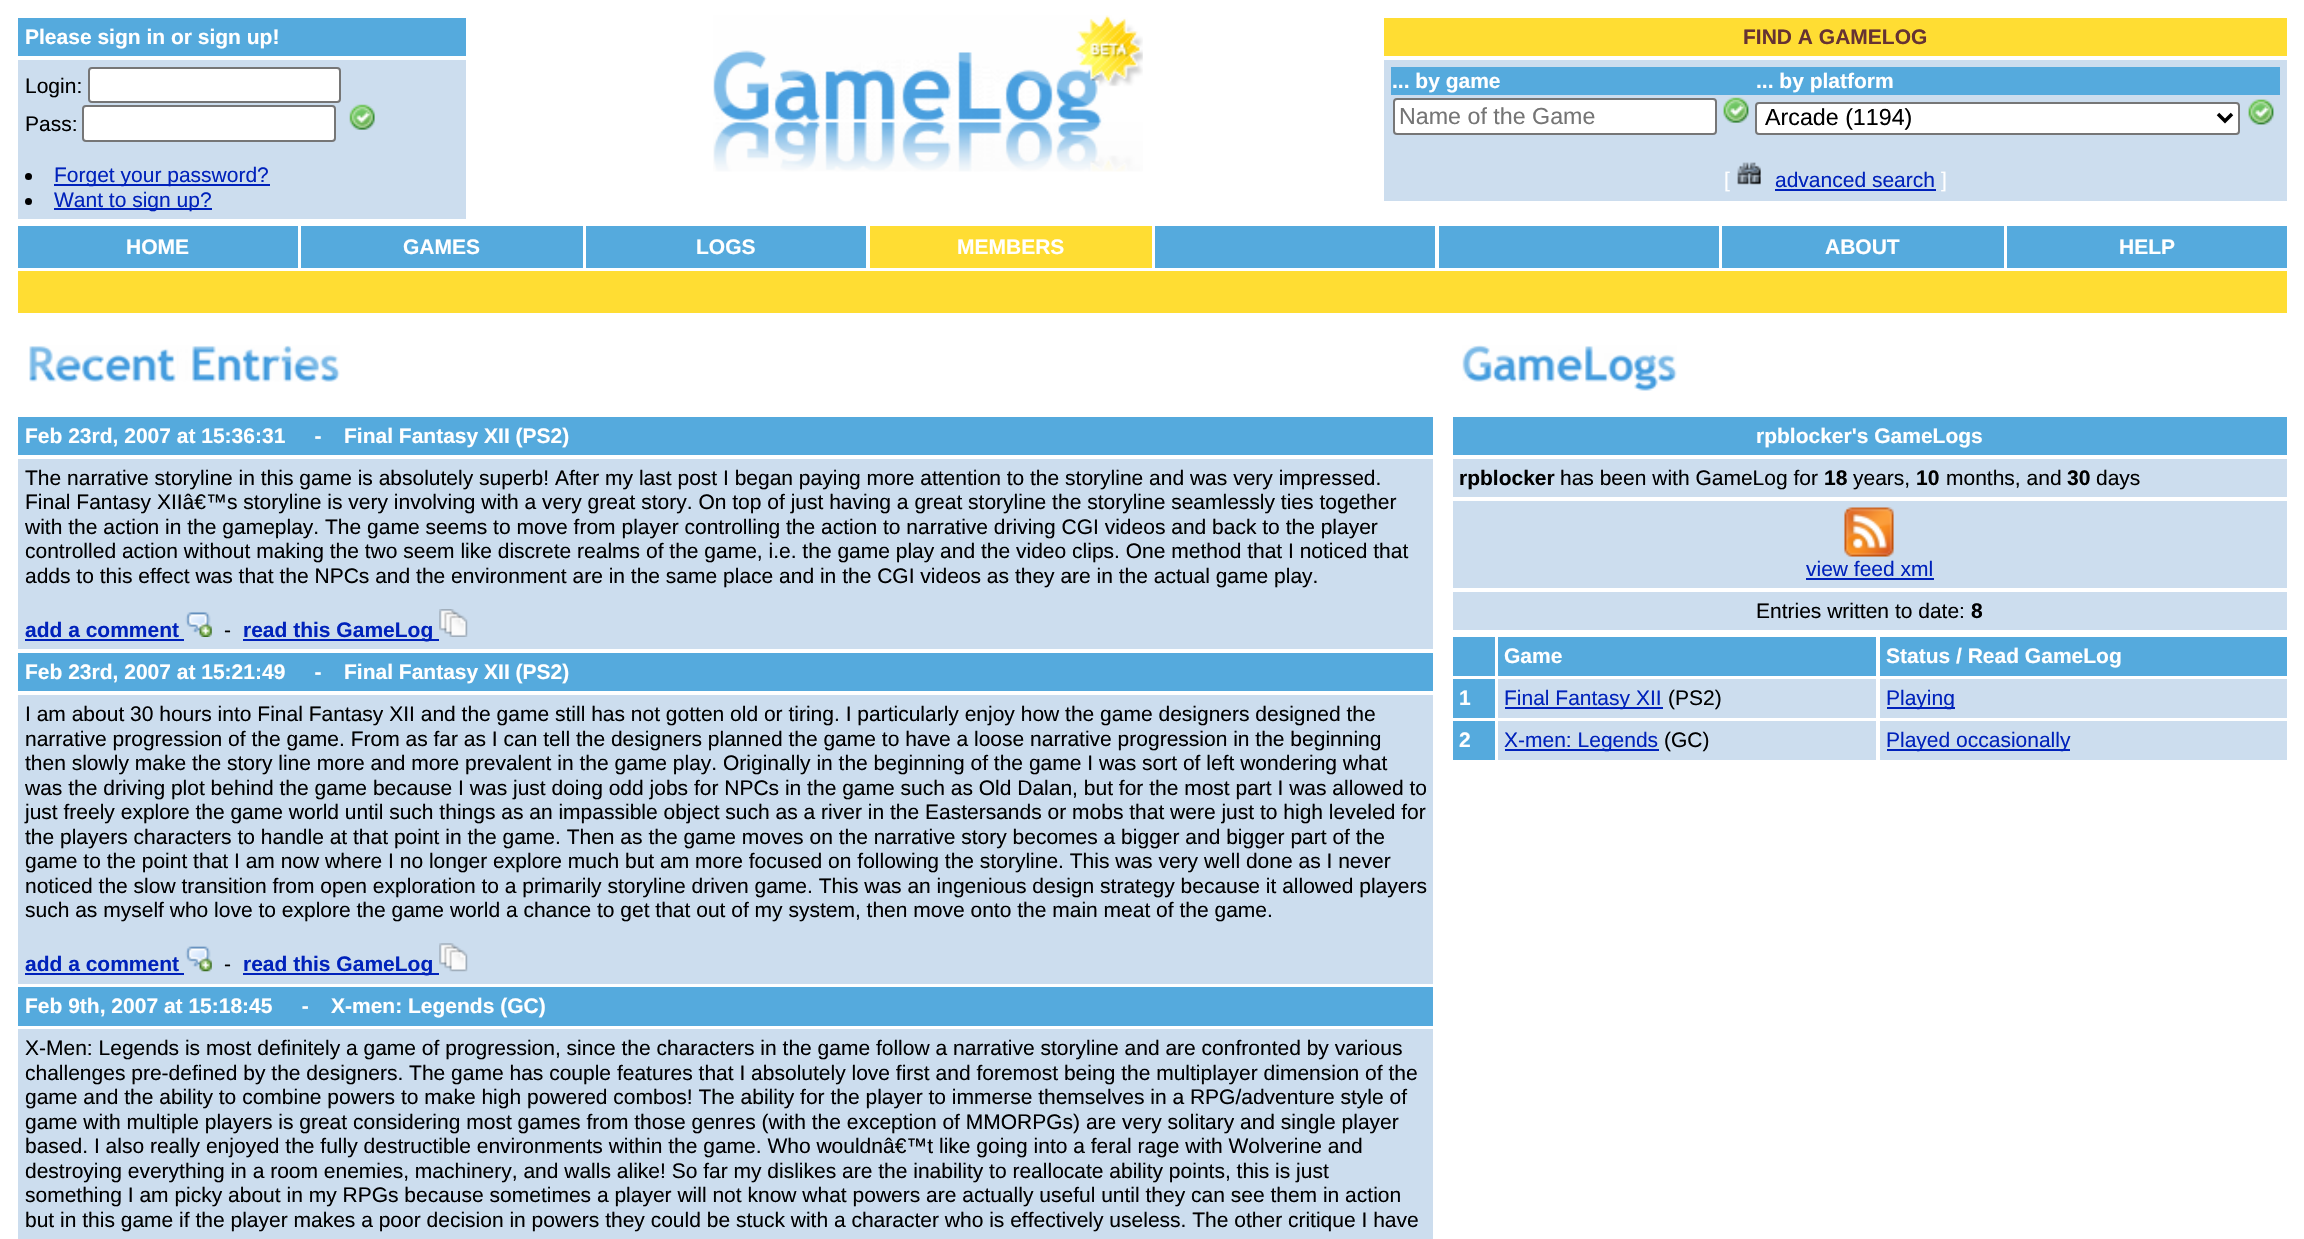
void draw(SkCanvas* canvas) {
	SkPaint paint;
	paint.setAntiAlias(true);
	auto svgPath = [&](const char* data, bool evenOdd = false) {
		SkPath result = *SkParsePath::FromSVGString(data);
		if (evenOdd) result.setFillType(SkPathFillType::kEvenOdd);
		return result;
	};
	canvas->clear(0xffffffff);
	paint.setColor(0xff55aadd);
	canvas->drawRect(SkRect::MakeXYWH(18, 18, 448, 38), paint);
	SkFont f1(fontMgr->matchFamilyStyle("Liberation Sans", SkFontStyle::Bold()), 21);
	f1.setSubpixel(true);
	paint.setColor(0xffffffff);
	canvas->drawString("Please sign in or sign up!", 25, 44, f1, paint);
	paint.setColor(0xffccddee);
	canvas->drawRect(SkRect::MakeXYWH(18, 60, 448, 159), paint);
	SkFont f2(fontMgr->matchFamilyStyle("Liberation Sans", SkFontStyle::Normal()), 21);
	f2.setSubpixel(true);
	paint.setColor(0xff000000);
	canvas->drawString("Login:", 25, 93, f2, paint);
	paint.setColor(0xffffffff);
	canvas->drawRoundRect(SkRect::MakeXYWH(89, 68, 251, 34), 3, 3, paint);
	paint.setStroke(true);
	paint.setStrokeWidth(2);
	paint.setColor(0xff767676);
	canvas->drawRoundRect(SkRect::MakeXYWH(89, 68, 251, 34), 3, 3, paint);
	paint.setStroke(false);
	paint.setColor(0xff000000);
	canvas->drawString("Pass:", 25, 131, f2, paint);
	paint.setColor(0xffffffff);
	canvas->drawRoundRect(SkRect::MakeXYWH(83, 106, 252, 35), 3, 3, paint);
	paint.setStroke(true);
	paint.setColor(0xff767676);
	canvas->drawRoundRect(SkRect::MakeXYWH(83, 106, 252, 35), 3, 3, paint);
	canvas->drawImageRect(SkImages::DeferredFromEncodedData(SkData::MakeFromFileName("img1.png")), SkRect::MakeXYWH(349, 104, 26, 26), SkSamplingOptions());
	paint.setStroke(false);
	paint.setColor(0xff000000);
	canvas->drawCircle(28.5, 176.5, 3.5, paint);
	paint.setColor(0xff0022bb);
	canvas->drawRect(SkRect::MakeXYWH(54, 184, 216, 2), paint);
	canvas->drawString("Forget your password?", 54, 182, f2, paint);
	paint.setColor(0xff000000);
	canvas->drawCircle(28.5, 201.5, 3.5, paint);
	paint.setColor(0xff0022bb);
	canvas->drawRect(SkRect::MakeXYWH(54, 208, 158, 2), paint);
	canvas->drawString("Want to sign up?", 54, 207, f2, paint);
	canvas->drawImageRect(SkImages::DeferredFromEncodedData(SkData::MakeFromFileName("img2.png")), SkRect::MakeXYWH(713, 15, 430, 157), SkSamplingOptions());
	paint.setColor(0xffffdd33);
	canvas->drawRect(SkRect::MakeXYWH(1384, 18, 903, 38), paint);
	paint.setColor(0xff663333);
	canvas->drawString("FIND A GAMELOG", 1743, 44, f1, paint);
	paint.setColor(0xffccddee);
	canvas->drawRect(SkRect::MakeXYWH(1384, 60, 903, 141), paint);
	paint.setColor(0xff55aadd);
	canvas->drawRect(SkRect::MakeXYWH(1391, 67, 889, 28), paint);
	paint.setColor(0xffffffff);
	canvas->drawString("... by game", 1392, 88, f1, paint);
	canvas->drawString("... by platform", 1756, 88, f1, paint);
	canvas->drawRoundRect(SkRect::MakeXYWH(1394, 99, 322, 35), 3, 3, paint);
	paint.setStroke(true);
	paint.setColor(0xff767676);
	canvas->drawRoundRect(SkRect::MakeXYWH(1394, 99, 322, 35), 3, 3, paint);
	SkFont f3(fontMgr->matchFamilyStyle("Liberation Sans", SkFontStyle::Normal()), 23.25);
	f3.setSubpixel(true);
	paint.setStroke(false);
	paint.setColor(0xff757575);
	canvas->drawString("Name of the Game", 1399, 124, f3, paint);
	canvas->drawImageRect(SkImages::DeferredFromEncodedData(SkData::MakeFromFileName("img3.png")), SkRect::MakeXYWH(1723, 97, 26, 26), SkSamplingOptions());
	paint.setColor(0xffffffff);
	canvas->drawRoundRect(SkRect::MakeXYWH(1756, 103, 483, 31), 3, 3, paint);
	paint.setStroke(true);
	paint.setColor(0xff767676);
	canvas->drawRoundRect(SkRect::MakeXYWH(1756, 103, 483, 31), 3, 3, paint);
	paint.setStrokeWidth(3.5);
	paint.setColor(0xff000000);
	canvas->drawPath(svgPath("M2218 114L2225 121L2232 114"), paint);
	paint.setStroke(false);
	canvas->drawString("Arcade (1194)", 1765, 125, f3, paint);
	canvas->drawImageRect(SkImages::DeferredFromEncodedData(SkData::MakeFromFileName("img4.png")), SkRect::MakeXYWH(2248, 99, 26, 26), SkSamplingOptions());
	paint.setColor(0xffffffff);
	canvas->drawString("[", 1724, 187, f2, paint);
	canvas->drawImageRect(SkImages::DeferredFromEncodedData(SkData::MakeFromFileName("img5.png")), SkRect::MakeXYWH(1737, 162, 24, 23), SkSamplingOptions());
	paint.setColor(0xff0022bb);
	canvas->drawString("advanced search", 1775, 187, f2, paint);
	canvas->drawRect(SkRect::MakeXYWH(1775, 189, 161, 2), paint);
	paint.setColor(0xffffffff);
	canvas->drawString("]", 1941, 187, f2, paint);
	paint.setColor(0xff55aadd);
	canvas->drawRect(SkRect::MakeXYWH(18, 226, 280, 42), paint);
	paint.setColor(0xffffffff);
	canvas->drawString("HOME", 126, 254, f1, paint);
	paint.setColor(0xff55aadd);
	canvas->drawRect(SkRect::MakeXYWH(301, 226, 282, 42), paint);
	paint.setColor(0xffffffff);
	canvas->drawString("GAMES", 403, 254, f1, paint);
	paint.setColor(0xff55aadd);
	canvas->drawRect(SkRect::MakeXYWH(586, 226, 280, 42), paint);
	paint.setColor(0xffffffff);
	canvas->drawString("LOGS", 696, 254, f1, paint);
	paint.setColor(0xffffdd33);
	canvas->drawRect(SkRect::MakeXYWH(870, 226, 282, 42), paint);
	paint.setColor(0xffffffff);
	canvas->drawString("MEMBERS", 957, 254, f1, paint);
	paint.setColor(0xff55aadd);
	canvas->drawRect(SkRect::MakeXYWH(1155, 226, 280, 42), paint);
	canvas->drawRect(SkRect::MakeXYWH(1439, 226, 280, 42), paint);
	canvas->drawRect(SkRect::MakeXYWH(1722, 226, 282, 42), paint);
	paint.setColor(0xffffffff);
	canvas->drawString("ABOUT", 1825, 254, f1, paint);
	paint.setColor(0xff55aadd);
	canvas->drawRect(SkRect::MakeXYWH(2007, 226, 280, 42), paint);
	paint.setColor(0xffffffff);
	canvas->drawString("HELP", 2119, 254, f1, paint);
	paint.setColor(0xffffdd33);
	canvas->drawRect(SkRect::MakeXYWH(18, 271, 2269, 42), paint);
	canvas->drawImageRect(SkImages::DeferredFromEncodedData(SkData::MakeFromFileName("img6.png")), SkRect::MakeXYWH(29, 345, 311, 37), SkSamplingOptions());
	paint.setColor(0xff55aadd);
	canvas->drawRect(SkRect::MakeXYWH(18, 417, 1415, 38), paint);
	paint.setColor(0xffffffff);
	canvas->drawString("Feb 23rd, 2007 at 15:36:31     -", 25, 443, f1, paint);
	canvas->drawString("Final Fantasy XII (PS2)", 344, 443, f1, paint);
	paint.setColor(0xffccddee);
	canvas->drawRect(SkRect::MakeXYWH(18, 459, 1415, 190), paint);
	paint.setColor(0xff000000);
	canvas->drawString("The narrative storyline in this game is absolutely superb! After my last post I began paying more attention to the storyline and was very impressed.", 25, 485, f2, paint);
	canvas->drawString("Final Fantasy XIIâ€™s storyline is very involving with a very great story. On top of just having a great storyline the storyline seamlessly ties together", 25, 509, f2, paint);
	canvas->drawString("with the action in the gameplay. The game seems to move from player controlling the action to narrative driving CGI videos and back to the player", 25, 534, f2, paint);
	canvas->drawString("controlled action without making the two seem like discrete realms of the game, i.e. the game play and the video clips. One method that I noticed that", 25, 558, f2, paint);
	canvas->drawString("adds to this effect was that the NPCs and the environment are in the same place and in the CGI videos as they are in the actual game play.", 25, 583, f2, paint);
	paint.setColor(0xff0022bb);
	canvas->drawString("add a comment", 25, 637, f1, paint);
	canvas->drawRect(SkRect::MakeXYWH(25, 639, 159, 2), paint);
	canvas->drawImageRect(SkImages::DeferredFromEncodedData(SkData::MakeFromFileName("img7.png")), SkRect::MakeXYWH(185, 612, 27, 25), SkSamplingOptions());
	paint.setColor(0xff000000);
	canvas->drawString("-", 224, 637, f2, paint);
	paint.setColor(0xff0022bb);
	canvas->drawRect(SkRect::MakeXYWH(243, 639, 196, 2), paint);
	canvas->drawString("read this GameLog", 243, 637, f1, paint);
	canvas->drawImageRect(SkImages::DeferredFromEncodedData(SkData::MakeFromFileName("img8.png")), SkRect::MakeXYWH(439, 609, 29, 28), SkSamplingOptions());
	paint.setColor(0xff55aadd);
	canvas->drawRect(SkRect::MakeXYWH(18, 653, 1415, 38), paint);
	paint.setColor(0xffffffff);
	canvas->drawString("Feb 23rd, 2007 at 15:21:49     -", 25, 679, f1, paint);
	canvas->drawString("Final Fantasy XII (PS2)", 344, 679, f1, paint);
	paint.setColor(0xffccddee);
	canvas->drawRect(SkRect::MakeXYWH(18, 695, 1415, 289), paint);
	paint.setColor(0xff000000);
	canvas->drawString("I am about 30 hours into Final Fantasy XII and the game still has not gotten old or tiring. I particularly enjoy how the game designers designed the", 25, 721, f2, paint);
	canvas->drawString("narrative progression of the game. From as far as I can tell the designers planned the game to have a loose narrative progression in the beginning", 25, 746, f2, paint);
	canvas->drawString("then slowly make the story line more and more prevalent in the game play. Originally in the beginning of the game I was sort of left wondering what", 25, 770, f2, paint);
	canvas->drawString("was the driving plot behind the game because I was just doing odd jobs for NPCs in the game such as Old Dalan, but for the most part I was allowed to", 25, 795, f2, paint);
	canvas->drawString("just freely explore the game world until such things as an impassible object such as a river in the Eastersands or mobs that were just to high leveled for", 25, 819, f2, paint);
	canvas->drawString("the players characters to handle at that point in the game. Then as the game moves on the narrative story becomes a bigger and bigger part of the", 25, 844, f2, paint);
	canvas->drawString("game to the point that I am now where I no longer explore much but am more focused on following the storyline. This was very well done as I never", 25, 868, f2, paint);
	canvas->drawString("noticed the slow transition from open exploration to a primarily storyline driven game. This was an ingenious design strategy because it allowed players", 25, 893, f2, paint);
	canvas->drawString("such as myself who love to explore the game world a chance to get that out of my system, then move onto the main meat of the game.", 25, 917, f2, paint);
	paint.setColor(0xff0022bb);
	canvas->drawString("add a comment", 25, 971, f1, paint);
	canvas->drawRect(SkRect::MakeXYWH(25, 973, 159, 2), paint);
	canvas->drawImageRect(SkImages::DeferredFromEncodedData(SkData::MakeFromFileName("img9.png")), SkRect::MakeXYWH(185, 946, 27, 26), SkSamplingOptions());
	paint.setColor(0xff000000);
	canvas->drawString("-", 224, 971, f2, paint);
	paint.setColor(0xff0022bb);
	canvas->drawRect(SkRect::MakeXYWH(243, 973, 196, 2), paint);
	canvas->drawString("read this GameLog", 243, 971, f1, paint);
	canvas->drawImageRect(SkImages::DeferredFromEncodedData(SkData::MakeFromFileName("img10.png")), SkRect::MakeXYWH(439, 943, 29, 29), SkSamplingOptions());
	paint.setColor(0xff55aadd);
	canvas->drawRect(SkRect::MakeXYWH(18, 987, 1415, 39), paint);
	paint.setColor(0xffffffff);
	canvas->drawString("Feb 9th, 2007 at 15:18:45     -", 25, 1013, f1, paint);
	canvas->drawString("X-men: Legends (GC)", 331, 1013, f1, paint);
	paint.setColor(0xffccddee);
	canvas->drawRect(SkRect::MakeXYWH(18, 1029, 1415, 210), paint);
	paint.setColor(0xff000000);
	canvas->drawString("X-Men: Legends is most definitely a game of progression, since the characters in the game follow a narrative storyline and are confronted by various", 25, 1055, f2, paint);
	canvas->drawString("challenges pre-defined by the designers. The game has couple features that I absolutely love first and foremost being the multiplayer dimension of the", 25, 1080, f2, paint);
	canvas->drawString("game and the ability to combine powers to make high powered combos! The ability for the player to immerse themselves in a RPG/adventure style of", 25, 1104, f2, paint);
	canvas->drawString("game with multiple players is great considering most games from those genres (with the exception of MMORPGs) are very solitary and single player", 25, 1129, f2, paint);
	canvas->drawString("based. I also really enjoyed the fully destructible environments within the game. Who wouldnâ€™t like going into a feral rage with Wolverine and", 25, 1153, f2, paint);
	canvas->drawString("destroying everything in a room enemies, machinery, and walls alike! So far my dislikes are the inability to reallocate ability points, this is just", 25, 1178, f2, paint);
	canvas->drawString("something I am picky about in my RPGs because sometimes a player will not know what powers are actually useful until they can see them in action", 25, 1202, f2, paint);
	canvas->drawString("but in this game if the player makes a poor decision in powers they could be stuck with a character who is effectively useless. The other critique I have", 25, 1227, f2, paint);
	canvas->drawImageRect(SkImages::DeferredFromEncodedData(SkData::MakeFromFileName("img11.png")), SkRect::MakeXYWH(1462, 345, 215, 46), SkSamplingOptions());
	paint.setColor(0xff55aadd);
	canvas->drawRect(SkRect::MakeXYWH(1453, 417, 834, 38), paint);
	paint.setColor(0xffffffff);
	canvas->drawString("rpblocker's GameLogs", 1756, 443, f1, paint);
	paint.setColor(0xffccddee);
	canvas->drawRect(SkRect::MakeXYWH(1453, 459, 834, 38), paint);
	paint.setColor(0xff000000);
	canvas->drawString("rpblocker", 1459, 485, f1, paint);
	canvas->drawString("has been with GameLog for", 1560, 485, f2, paint);
	canvas->drawString("18", 1824, 485, f1, paint);
	canvas->drawString("years,", 1853, 485, f2, paint);
	canvas->drawString("10", 1916, 485, f1, paint);
	canvas->drawString("months, and", 1946, 485, f2, paint);
	canvas->drawString("30", 2067, 485, f1, paint);
	canvas->drawString("days", 2096, 485, f2, paint);
	paint.setColor(0xffccddee);
	canvas->drawRect(SkRect::MakeXYWH(1453, 501, 834, 87), paint);
	canvas->drawImageRect(SkImages::DeferredFromEncodedData(SkData::MakeFromFileName("img12.png")), SkRect::MakeXYWH(1844, 507, 50, 50), SkSamplingOptions());
	paint.setColor(0xff0022bb);
	canvas->drawString("view feed xml", 1806, 576, f2, paint);
	canvas->drawRect(SkRect::MakeXYWH(1806, 578, 128, 2), paint);
	paint.setColor(0xffccddee);
	canvas->drawRect(SkRect::MakeXYWH(1453, 592, 834, 38), paint);
	paint.setColor(0xff000000);
	canvas->drawString("Entries written to date:", 1756, 618, f2, paint);
	canvas->drawString("8", 1971, 618, f1, paint);
	paint.setColor(0xff55aadd);
	canvas->drawRect(SkRect::MakeXYWH(1453, 637, 42, 39), paint);
	canvas->drawRect(SkRect::MakeXYWH(1498, 637, 378, 39), paint);
	paint.setColor(0xffffffff);
	canvas->drawString("Game", 1504, 663, f1, paint);
	paint.setColor(0xff55aadd);
	canvas->drawRect(SkRect::MakeXYWH(1880, 637, 407, 39), paint);
	paint.setColor(0xffffffff);
	canvas->drawString("Status / Read GameLog", 1886, 663, f1, paint);
	paint.setColor(0xff55aadd);
	canvas->drawRect(SkRect::MakeXYWH(1453, 679, 42, 39), paint);
	paint.setColor(0xffffffff);
	canvas->drawString("1", 1459, 705, f1, paint);
	paint.setColor(0xffccddee);
	canvas->drawRect(SkRect::MakeXYWH(1498, 679, 378, 39), paint);
	paint.setColor(0xff0022bb);
	canvas->drawRect(SkRect::MakeXYWH(1505, 707, 158, 2), paint);
	canvas->drawString("Final Fantasy XII", 1504, 705, f2, paint);
	paint.setColor(0xff000000);
	canvas->drawString("(PS2)", 1668, 705, f2, paint);
	paint.setColor(0xffccddee);
	canvas->drawRect(SkRect::MakeXYWH(1880, 679, 407, 39), paint);
	paint.setColor(0xff0022bb);
	canvas->drawRect(SkRect::MakeXYWH(1887, 707, 68, 2), paint);
	canvas->drawString("Playing", 1886, 705, f2, paint);
	paint.setColor(0xff55aadd);
	canvas->drawRect(SkRect::MakeXYWH(1453, 721, 42, 39), paint);
	paint.setColor(0xffffffff);
	canvas->drawString("2", 1459, 747, f1, paint);
	paint.setColor(0xffccddee);
	canvas->drawRect(SkRect::MakeXYWH(1498, 721, 378, 39), paint);
	paint.setColor(0xff0022bb);
	canvas->drawRect(SkRect::MakeXYWH(1505, 749, 154, 2), paint);
	canvas->drawString("X-men: Legends", 1504, 747, f2, paint);
	paint.setColor(0xff000000);
	canvas->drawString("(GC)", 1664, 747, f2, paint);
	paint.setColor(0xffccddee);
	canvas->drawRect(SkRect::MakeXYWH(1880, 721, 407, 39), paint);
	paint.setColor(0xff0022bb);
	canvas->drawRect(SkRect::MakeXYWH(1887, 749, 183, 2), paint);
	canvas->drawString("Played occasionally", 1886, 747, f2, paint);
}
